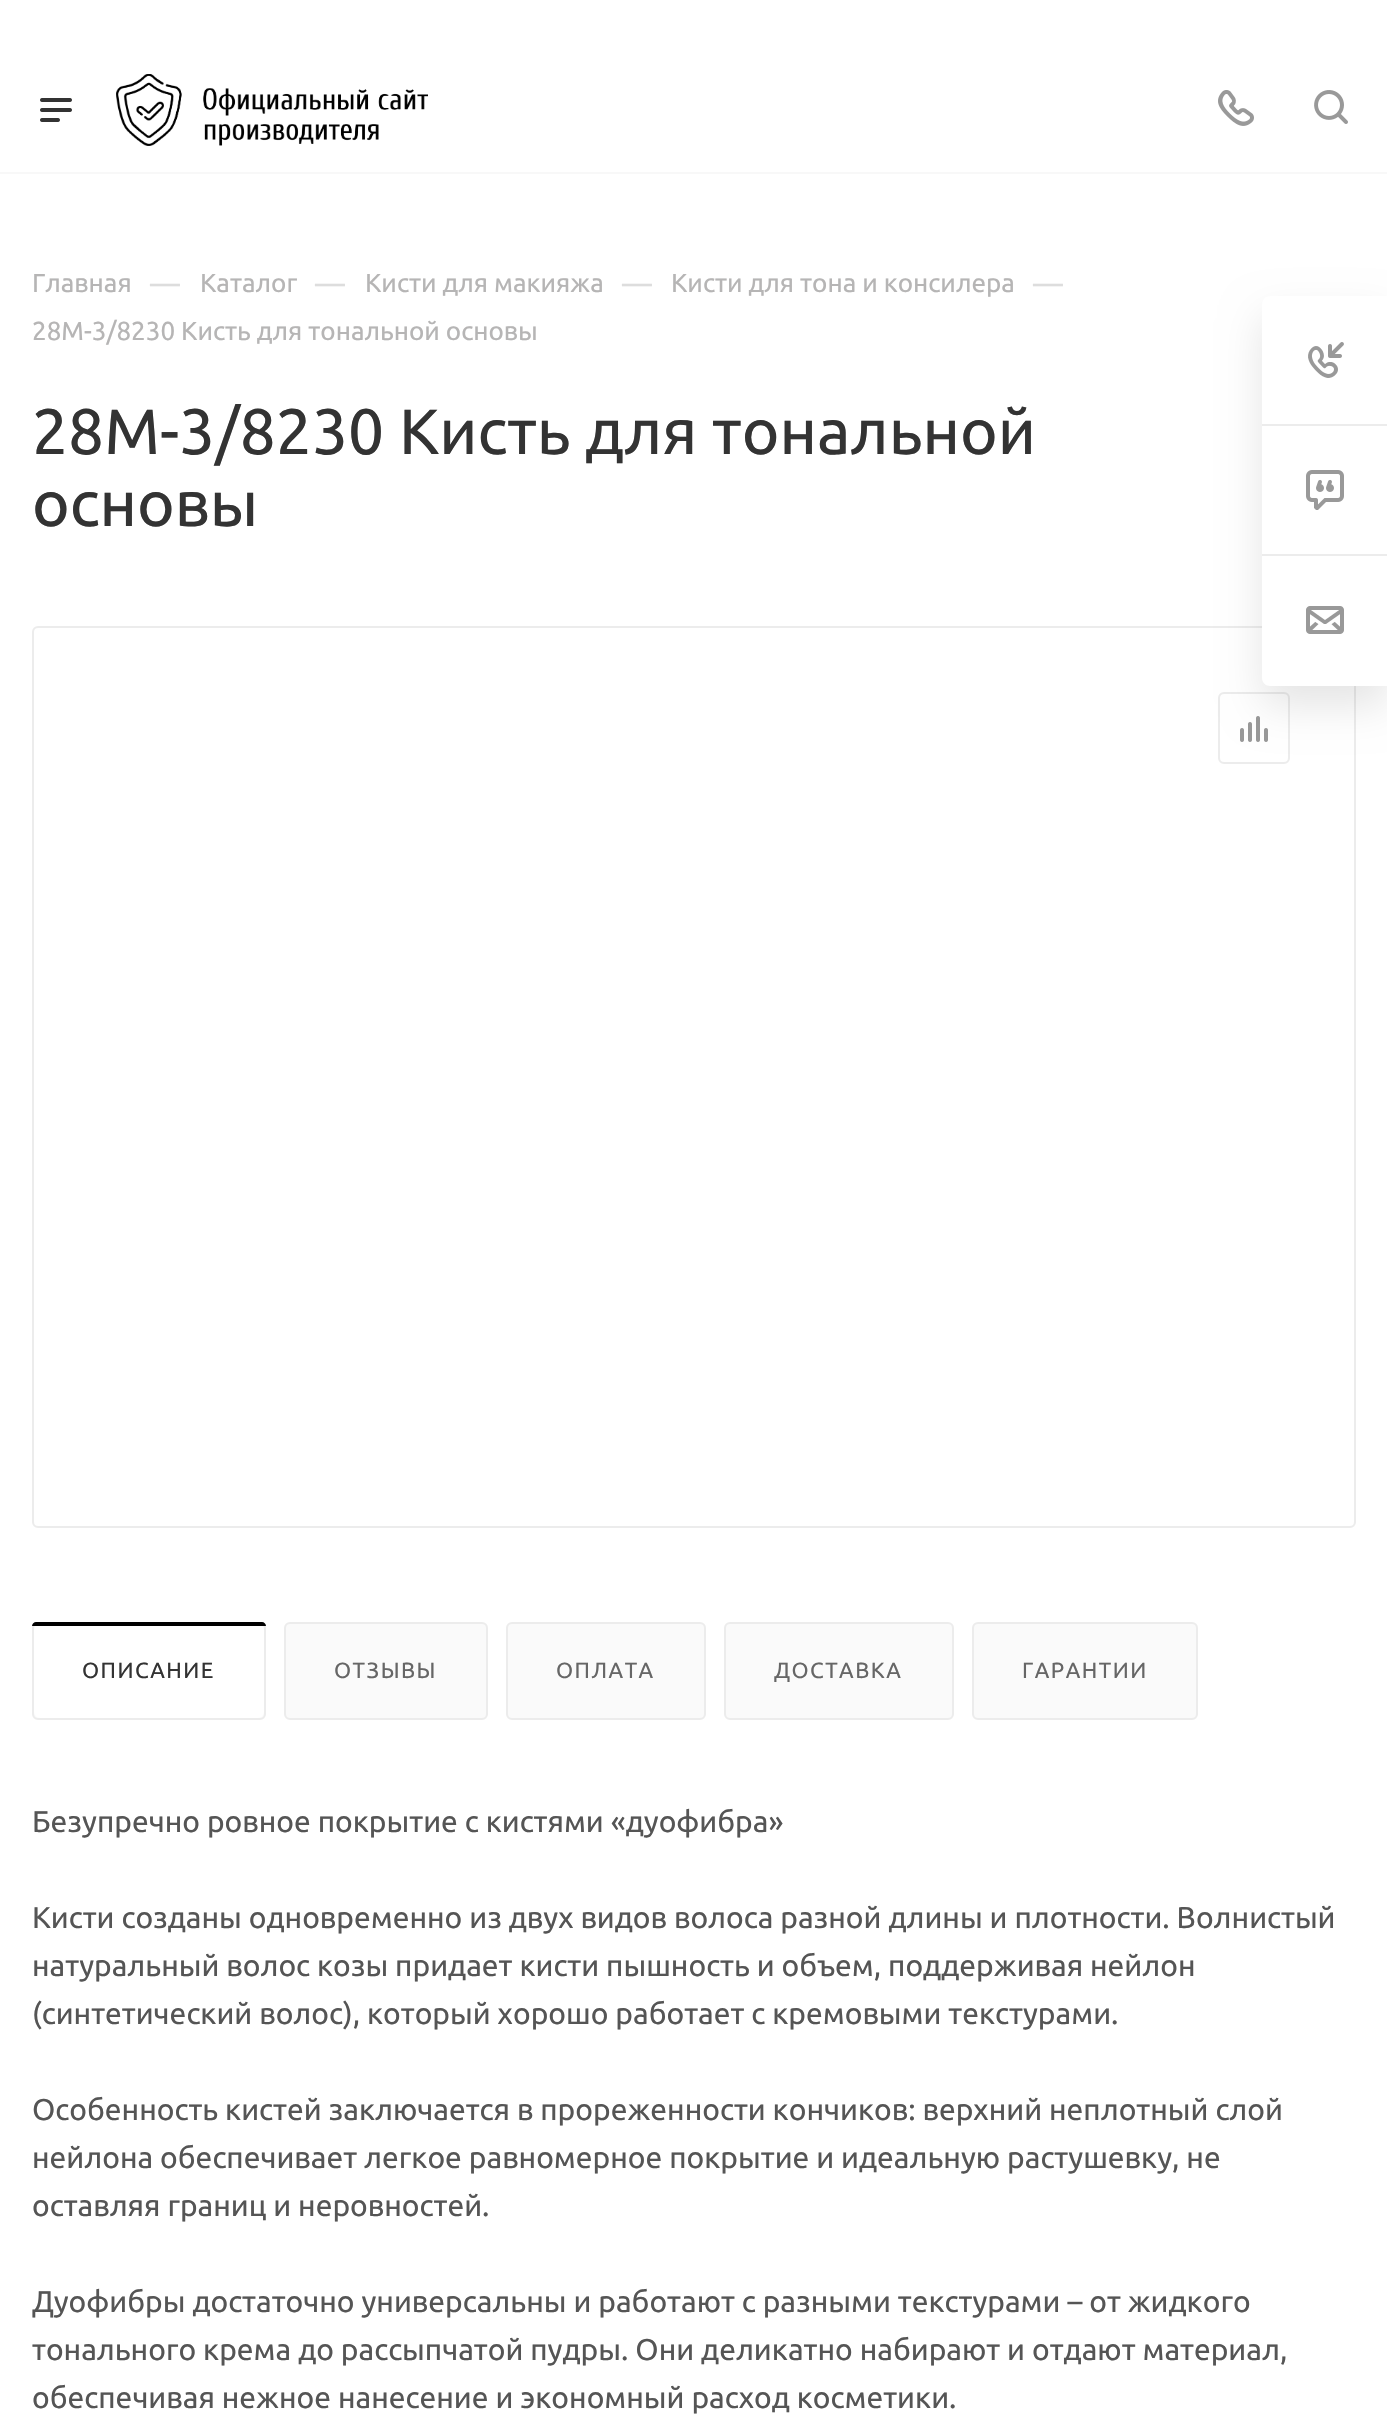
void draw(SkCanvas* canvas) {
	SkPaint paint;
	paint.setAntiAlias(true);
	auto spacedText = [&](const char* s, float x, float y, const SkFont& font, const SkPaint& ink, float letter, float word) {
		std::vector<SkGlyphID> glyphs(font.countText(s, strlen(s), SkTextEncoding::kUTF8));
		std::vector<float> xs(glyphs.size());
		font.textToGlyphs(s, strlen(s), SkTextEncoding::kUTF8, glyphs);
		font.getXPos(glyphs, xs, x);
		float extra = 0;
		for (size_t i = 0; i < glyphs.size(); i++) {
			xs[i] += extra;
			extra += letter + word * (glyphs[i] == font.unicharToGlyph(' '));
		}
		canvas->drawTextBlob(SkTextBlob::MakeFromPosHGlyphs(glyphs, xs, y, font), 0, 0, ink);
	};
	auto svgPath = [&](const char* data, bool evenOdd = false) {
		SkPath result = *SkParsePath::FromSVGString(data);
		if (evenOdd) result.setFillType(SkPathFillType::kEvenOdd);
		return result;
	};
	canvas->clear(0xffffffff);
	paint.setStroke(true);
	paint.setStrokeWidth(2);
	paint.setColor(0xffececec);
	canvas->drawRoundRect(SkRect::MakeXYWH(33, 627, 1322, 900), 5, 5, paint);
	canvas->drawRoundRect(SkRect::MakeXYWH(1219, 693, 70, 70), 5, 5, paint);
	canvas->drawImageRect(SkImages::DeferredFromEncodedData(SkData::MakeFromFileName("img8.png")), SkRect::MakeXYWH(1240, 716, 28, 26), SkSamplingOptions());
	paint.setStroke(false);
	paint.setColor(0x1a000000);
	paint.setMaskFilter(SkMaskFilter::MakeBlur(kNormal_SkBlurStyle, 20));
	canvas->drawRoundRect(SkRect::MakeXYWH(1262, 316, 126, 390), 8, 8, paint);
	paint.setMaskFilter(nullptr);
	paint.setColor(0xffffffff);
	canvas->drawPath(svgPath("M1270 296H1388V686H1270C1265.5 686 1262 682.5 1262 678V304C1262 299.5 1265.5 296 1270 296Z"), paint);
	paint.setColor(0xffececec);
	canvas->drawRect(SkRect::MakeXYWH(1262, 424, 125, 2), paint);
	canvas->drawImageRect(SkImages::DeferredFromEncodedData(SkData::MakeFromFileName("img1.png")), SkRect::MakeXYWH(1308, 342, 36, 36), SkSamplingOptions());
	canvas->drawRect(SkRect::MakeXYWH(1262, 554, 125, 2), paint);
	canvas->drawImageRect(SkImages::DeferredFromEncodedData(SkData::MakeFromFileName("img2.png")), SkRect::MakeXYWH(1306, 470, 38, 40), SkSamplingOptions());
	canvas->drawImageRect(SkImages::DeferredFromEncodedData(SkData::MakeFromFileName("img3.png")), SkRect::MakeXYWH(1306, 606, 38, 28), SkSamplingOptions());
	paint.setColor(0xfff8f8f8);
	canvas->drawRect(SkRect::MakeXYWH(0, 172, 1387, 2), paint);
	canvas->drawImageRect(SkImages::DeferredFromEncodedData(SkData::MakeFromFileName("img4.png")), SkRect::MakeXYWH(40, 98, 32, 24), SkSamplingOptions());
	canvas->drawImageRect(SkImages::DeferredFromEncodedData(SkData::MakeFromFileName("img5.png")), SkRect::MakeXYWH(116, 74, 312, 72), SkSamplingOptions());
	canvas->drawImageRect(SkImages::DeferredFromEncodedData(SkData::MakeFromFileName("img6.png")), SkRect::MakeXYWH(1218, 90, 36, 36), SkSamplingOptions());
	canvas->drawImageRect(SkImages::DeferredFromEncodedData(SkData::MakeFromFileName("img7.png")), SkRect::MakeXYWH(1314, 90, 34, 34), SkSamplingOptions());
	SkFont f1(fontMgr->matchFamilyStyle("Ubuntu", SkFontStyle::Normal()), 26);
	f1.setSubpixel(true);
	paint.setColor(0xffb6b5b5);
	canvas->drawString("Главная", 32, 292, f1, paint);
	SkFont f2(fontMgr->matchFamilyStyle("Ubuntu", SkFontStyle::Normal()), 30);
	f2.setSubpixel(true);
	paint.setColor(0xffdddddd);
	canvas->drawString("—", 150, 294, f2, paint);
	paint.setColor(0xffb6b5b5);
	canvas->drawString("Каталог", 200, 292, f1, paint);
	paint.setColor(0xffdddddd);
	canvas->drawString("—", 315, 294, f2, paint);
	paint.setColor(0xffb6b5b5);
	canvas->drawString("Кисти для макияжа", 365, 292, f1, paint);
	paint.setColor(0xffdddddd);
	canvas->drawString("—", 622, 294, f2, paint);
	paint.setColor(0xffb6b5b5);
	canvas->drawString("Кисти для тона и консилера", 671, 292, f1, paint);
	paint.setColor(0xffdddddd);
	canvas->drawString("—", 1033, 294, f2, paint);
	paint.setColor(0xffb6b5b5);
	canvas->drawString("28М-3/8230 Кисть для тональной основы", 32, 340, f1, paint);
	SkFont f3(fontMgr->matchFamilyStyle("Ubuntu", SkFontStyle::Normal()), 64);
	f3.setSubpixel(true);
	paint.setColor(0xff333333);
	canvas->drawString("28М-3/8230 Кисть для тональной", 32, 454, f3, paint);
	canvas->drawString("основы", 32, 526, f3, paint);
	paint.setColor(0xfffafafa);
	canvas->drawRoundRect(SkRect::MakeXYWH(33, 1623, 232, 96), 5, 5, paint);
	paint.setStroke(true);
	paint.setColor(0xffececec);
	canvas->drawRoundRect(SkRect::MakeXYWH(33, 1623, 232, 96), 5, 5, paint);
	paint.setStroke(false);
	paint.setColor(0xffffffff);
	canvas->drawRoundRect(SkRect::MakeXYWH(34, 1624, 230, 94), 6, 6, paint);
	paint.setColor(0xff000000);
	canvas->drawPath(svgPath("M36 1622H262C264 1622 266 1624 266 1626H32C32 1624 34 1622 36 1622Z"), paint);
	SkFont f4(fontMgr->matchFamilyStyle("Ubuntu", SkFontStyle::Normal()), 22);
	f4.setSubpixel(true);
	paint.setColor(0xff333333);
	spacedText("ОПИСАНИЕ", 82, 1678, f4, paint, 1.5, 0);
	paint.setColor(0xfffafafa);
	canvas->drawRoundRect(SkRect::MakeXYWH(285, 1623, 202, 96), 5, 5, paint);
	paint.setStroke(true);
	paint.setColor(0xffececec);
	canvas->drawRoundRect(SkRect::MakeXYWH(285, 1623, 202, 96), 5, 5, paint);
	paint.setStroke(false);
	paint.setColor(0xff666666);
	spacedText("ОТЗЫВЫ", 334, 1678, f4, paint, 1.5, 0);
	paint.setColor(0xfffafafa);
	canvas->drawRoundRect(SkRect::MakeXYWH(507, 1623, 198, 96), 5, 5, paint);
	paint.setStroke(true);
	paint.setColor(0xffececec);
	canvas->drawRoundRect(SkRect::MakeXYWH(507, 1623, 198, 96), 5, 5, paint);
	paint.setStroke(false);
	paint.setColor(0xff666666);
	spacedText("ОПЛАТА", 556, 1678, f4, paint, 1.5, 0);
	paint.setColor(0xfffafafa);
	canvas->drawRoundRect(SkRect::MakeXYWH(725, 1623, 228, 96), 5, 5, paint);
	paint.setStroke(true);
	paint.setColor(0xffececec);
	canvas->drawRoundRect(SkRect::MakeXYWH(725, 1623, 228, 96), 5, 5, paint);
	paint.setStroke(false);
	paint.setColor(0xff666666);
	spacedText("ДОСТАВКА", 774, 1678, f4, paint, 1.5, 0);
	paint.setColor(0xfffafafa);
	canvas->drawRoundRect(SkRect::MakeXYWH(973, 1623, 224, 96), 5, 5, paint);
	paint.setStroke(true);
	paint.setColor(0xffececec);
	canvas->drawRoundRect(SkRect::MakeXYWH(973, 1623, 224, 96), 5, 5, paint);
	paint.setStroke(false);
	paint.setColor(0xff666666);
	spacedText("ГАРАНТИИ", 1022, 1678, f4, paint, 1.5, 0);
	paint.setColor(0xff555555);
	canvas->drawString("Безупречно ровное покрытие с кистями «дуофибра»", 32, 1832, f2, paint);
	canvas->drawString("Кисти созданы одновременно из двух видов волоса разной длины и плотности. Волнистый", 32, 1928, f2, paint);
	canvas->drawString("натуральный волос козы придает кисти пышность и объем, поддерживая нейлон", 32, 1976, f2, paint);
	canvas->drawString("(синтетический волос), который хорошо работает с кремовыми текстурами.", 32, 2024, f2, paint);
	canvas->drawString("Особенность кистей заключается в прореженности кончиков: верхний неплотный слой", 32, 2120, f2, paint);
	canvas->drawString("нейлона обеспечивает легкое равномерное покрытие и идеальную растушевку, не", 32, 2168, f2, paint);
	canvas->drawString("оставляя границ и неровностей.", 32, 2216, f2, paint);
	canvas->drawString("Дуофибры достаточно универсальны и работают с разными текстурами – от жидкого", 32, 2312, f2, paint);
	canvas->drawString("тонального крема до рассыпчатой пудры. Они деликатно набирают и отдают материал,", 32, 2360, f2, paint);
	canvas->drawString("обеспечивая нежное нанесение и экономный расход косметики.", 32, 2408, f2, paint);
}
